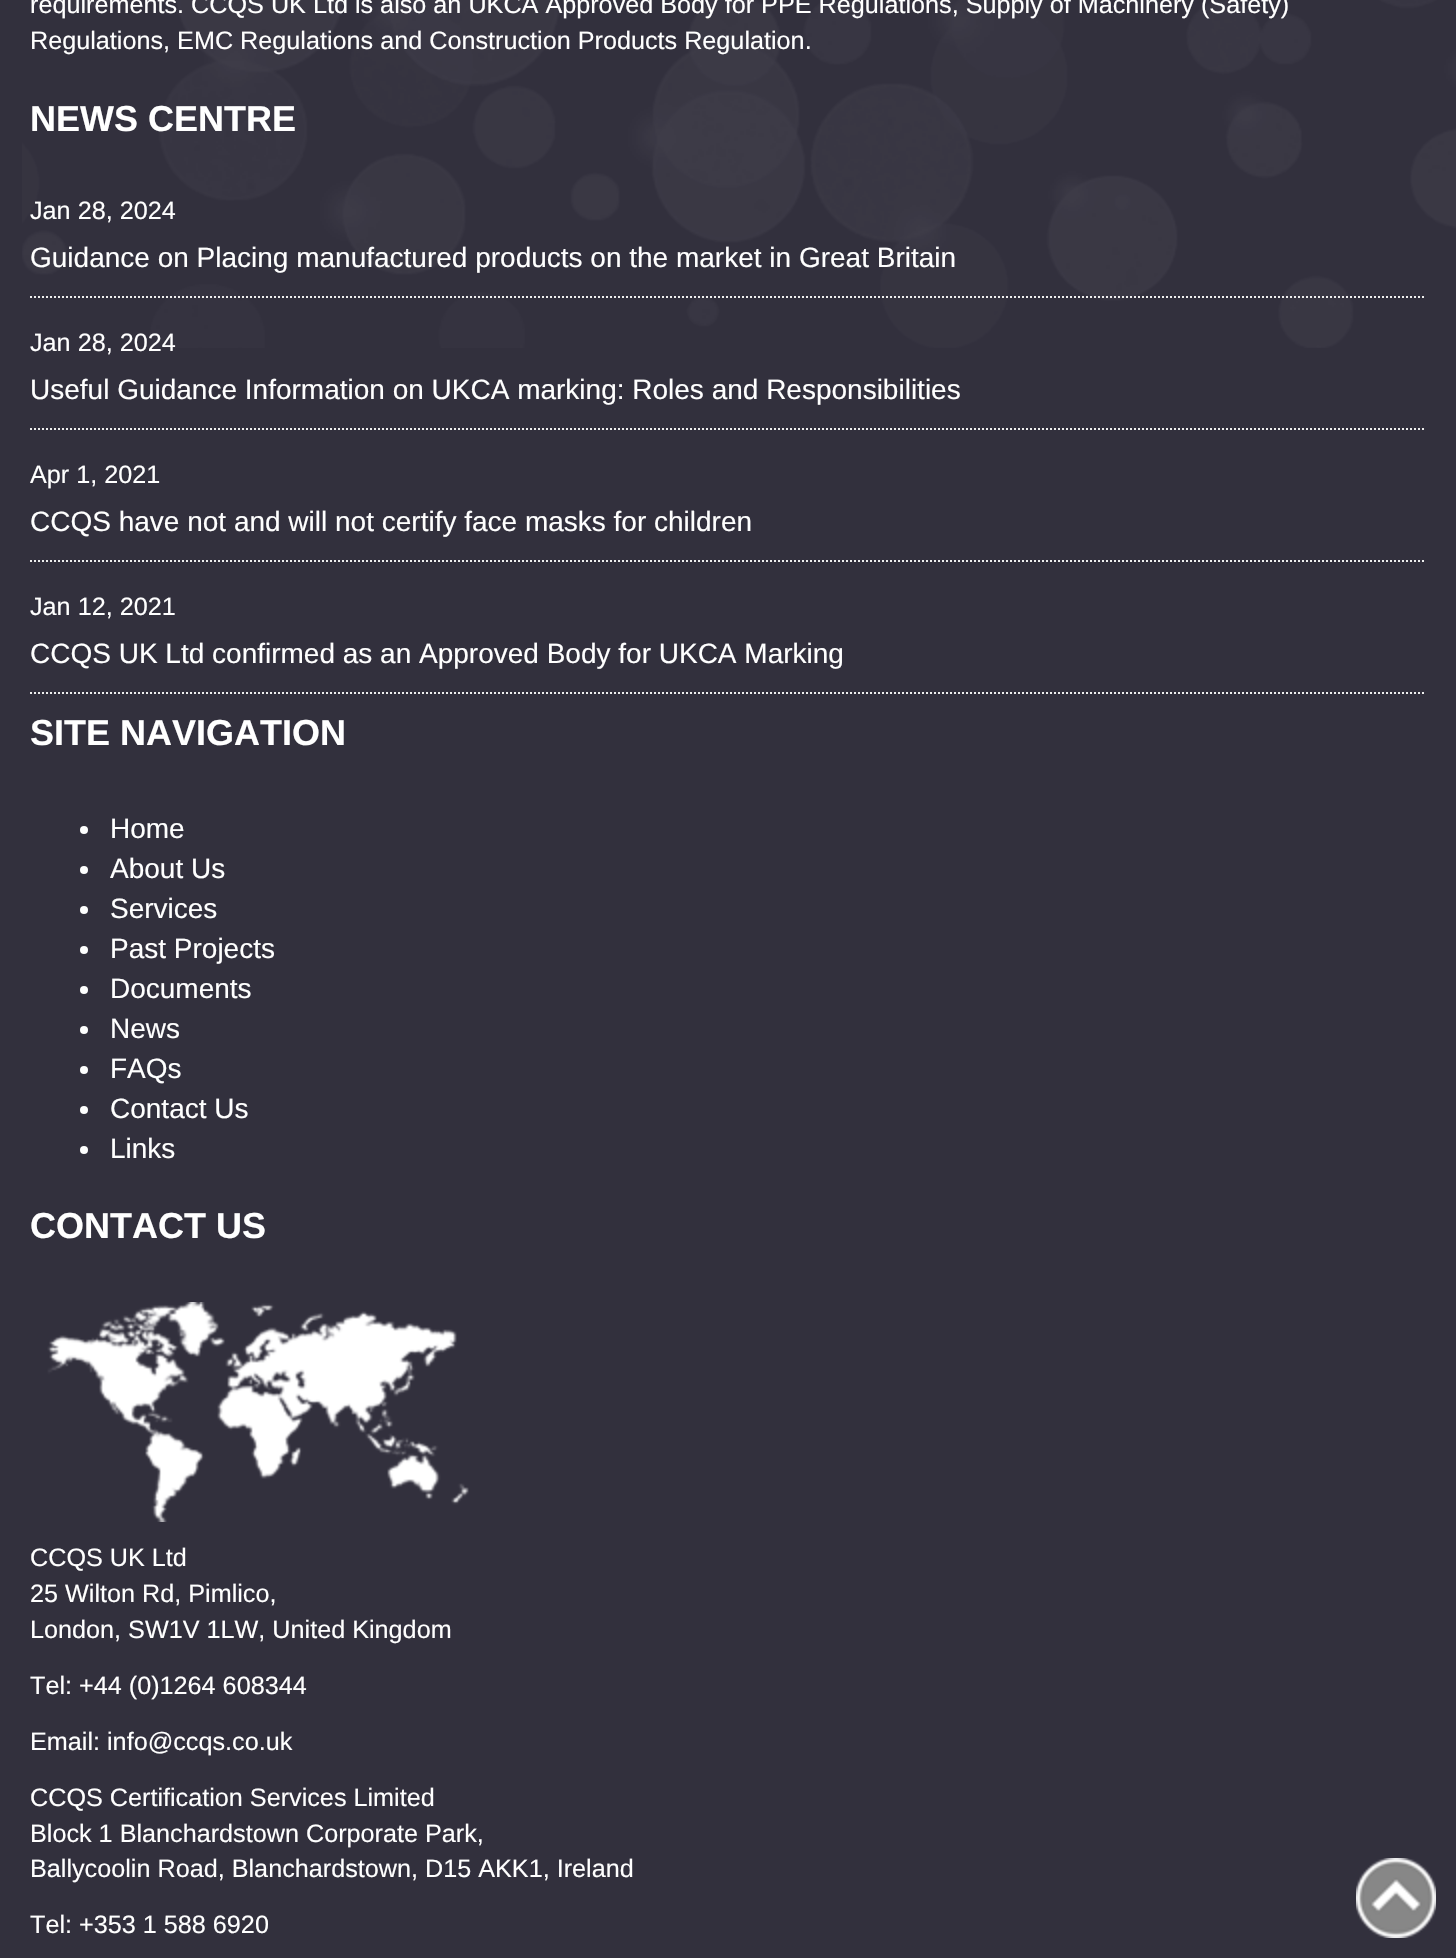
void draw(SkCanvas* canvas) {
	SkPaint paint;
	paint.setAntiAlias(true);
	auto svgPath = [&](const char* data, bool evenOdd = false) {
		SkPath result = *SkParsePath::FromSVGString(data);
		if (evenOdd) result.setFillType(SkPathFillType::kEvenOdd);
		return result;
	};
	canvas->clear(0xff32303d);
	canvas->drawImageRect(SkImages::DeferredFromEncodedData(SkData::MakeFromFileName("img1.png")), SkRect::MakeXYWH(22, 0, 1434, 348), SkSamplingOptions());
	SkFont f1(fontMgr->matchFamilyStyle("Liberation Sans", SkFontStyle::Normal()), 25.2);
	f1.setSubpixel(true);
	paint.setColor(0xffffffff);
	canvas->drawString("requirements. CCQS UK Ltd is also an UKCA Approved Body for PPE Regulations, Supply of Machinery (Safety)", 30, 13, f1, paint);
	canvas->drawString("Regulations, EMC Regulations and Construction Products Regulation.", 30, 49, f1, paint);
	SkFont f2(fontMgr->matchFamilyStyle("Liberation Sans", SkFontStyle::Bold()), 36);
	f2.setSubpixel(true);
	canvas->drawString("NEWS CENTRE", 30, 131, f2, paint);
	paint.setStroke(true);
	paint.setStrokeWidth(2);
	paint.setColor(0xffeeeeee);
	paint.setPathEffect(SkDashPathEffect::Make({{2, 2}}, 0));
	canvas->drawPath(svgPath("M30 297H1426"), paint);
	paint.setPathEffect(nullptr);
	paint.setStroke(false);
	paint.setColor(0xffffffff);
	canvas->drawString("Jan 28, 2024", 30, 219, f1, paint);
	SkFont f3(fontMgr->matchFamilyStyle("Liberation Sans", SkFontStyle::Normal()), 28);
	f3.setSubpixel(true);
	canvas->drawString("Guidance on Placing manufactured products on the market in Great Britain", 30, 267, f3, paint);
	paint.setStroke(true);
	paint.setColor(0xffeeeeee);
	paint.setPathEffect(SkDashPathEffect::Make({{2, 2}}, 0));
	canvas->drawPath(svgPath("M30 429H1426"), paint);
	paint.setPathEffect(nullptr);
	paint.setStroke(false);
	paint.setColor(0xffffffff);
	canvas->drawString("Jan 28, 2024", 30, 351, f1, paint);
	canvas->drawString("Useful Guidance Information on UKCA marking: Roles and Responsibilities", 30, 399, f3, paint);
	paint.setStroke(true);
	paint.setColor(0xffeeeeee);
	paint.setPathEffect(SkDashPathEffect::Make({{2, 2}}, 0));
	canvas->drawPath(svgPath("M30 561H1426"), paint);
	paint.setPathEffect(nullptr);
	paint.setStroke(false);
	paint.setColor(0xffffffff);
	canvas->drawString("Apr 1, 2021", 30, 483, f1, paint);
	canvas->drawString("CCQS have not and will not certify face masks for children", 30, 531, f3, paint);
	paint.setStroke(true);
	paint.setColor(0xffeeeeee);
	paint.setPathEffect(SkDashPathEffect::Make({{2, 2}}, 0));
	canvas->drawPath(svgPath("M30 693H1426"), paint);
	paint.setPathEffect(nullptr);
	paint.setStroke(false);
	paint.setColor(0xffffffff);
	canvas->drawString("Jan 12, 2021", 30, 615, f1, paint);
	canvas->drawString("CCQS UK Ltd confirmed as an Approved Body for UKCA Marking", 30, 663, f3, paint);
	canvas->drawString("SITE NAVIGATION", 30, 745, f2, paint);
	canvas->drawCircle(84, 830, 4, paint);
	canvas->drawString("Home", 110, 838, f3, paint);
	canvas->drawCircle(84, 870, 4, paint);
	canvas->drawString("About Us", 110, 878, f3, paint);
	canvas->drawCircle(84, 910, 4, paint);
	canvas->drawString("Services", 110, 918, f3, paint);
	canvas->drawCircle(84, 950, 4, paint);
	canvas->drawString("Past Projects", 110, 958, f3, paint);
	canvas->drawCircle(84, 990, 4, paint);
	canvas->drawString("Documents", 110, 998, f3, paint);
	canvas->drawCircle(84, 1030, 4, paint);
	canvas->drawString("News", 110, 1038, f3, paint);
	canvas->drawCircle(84, 1070, 4, paint);
	canvas->drawString("FAQs", 110, 1078, f3, paint);
	canvas->drawCircle(84, 1110, 4, paint);
	canvas->drawString("Contact Us", 110, 1118, f3, paint);
	canvas->drawCircle(84, 1150, 4, paint);
	canvas->drawString("Links", 110, 1158, f3, paint);
	canvas->drawString("CONTACT US", 30, 1238, f2, paint);
	canvas->drawImageRect(SkImages::DeferredFromEncodedData(SkData::MakeFromFileName("img2.png")), SkRect::MakeXYWH(47, 1302, 422, 220), SkSamplingOptions());
	canvas->drawString("CCQS UK Ltd", 30, 1566, f1, paint);
	canvas->drawString("25 Wilton Rd, Pimlico,", 30, 1602, f1, paint);
	canvas->drawString("London, SW1V 1LW, United Kingdom", 30, 1638, f1, paint);
	canvas->drawString("Tel: +44 (0)1264 608344", 30, 1694, f1, paint);
	canvas->drawString("Email: info@ccqs.co.uk", 30, 1750, f1, paint);
	canvas->drawString("CCQS Certification Services Limited", 30, 1806, f1, paint);
	canvas->drawString("Block 1 Blanchardstown Corporate Park,", 30, 1842, f1, paint);
	canvas->drawString("Ballycoolin Road, Blanchardstown, D15 AKK1, Ireland", 30, 1877, f1, paint);
	canvas->drawString("Tel: +353 1 588 6920", 30, 1933, f1, paint);
	canvas->drawImageRect(SkImages::DeferredFromEncodedData(SkData::MakeFromFileName("img3.png")), SkRect::MakeXYWH(1356, 1858, 80, 80), SkSamplingOptions());
}
